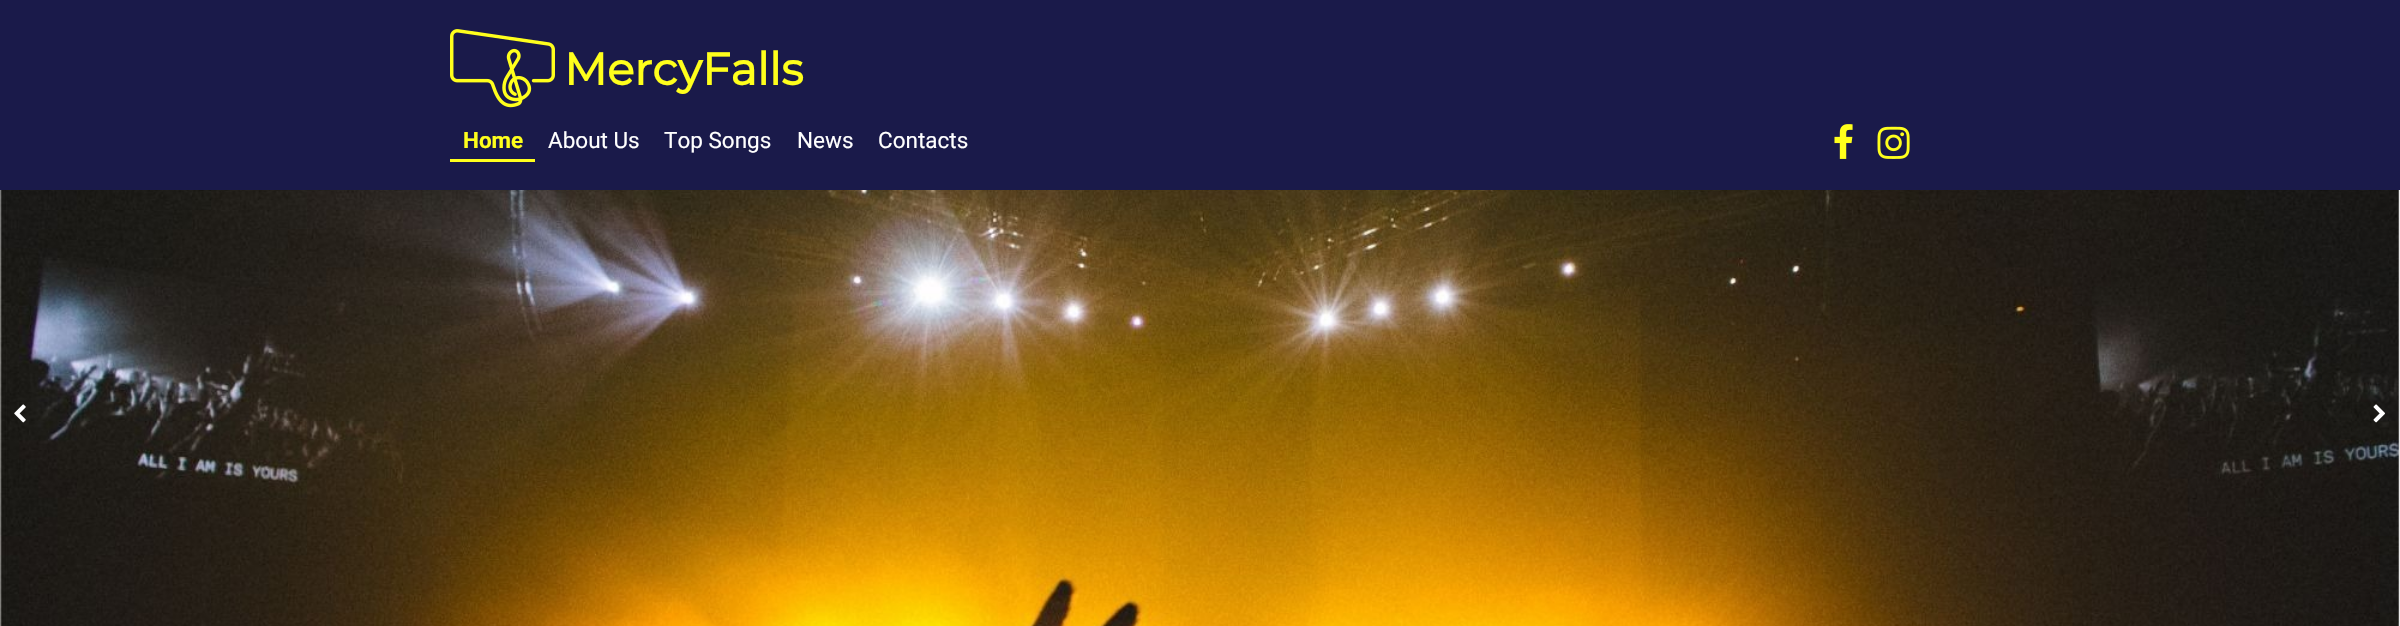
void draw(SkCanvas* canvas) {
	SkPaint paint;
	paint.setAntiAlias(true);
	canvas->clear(0xffebebeb);
	paint.setColor(0xff1a1a4a);
	canvas->drawRect(SkRect::MakeXYWH(0, 0, 2400, 190), paint);
	canvas->drawImageRect(SkImages::DeferredFromEncodedData(SkData::MakeFromFileName("img1.png")), SkRect::MakeXYWH(450, 29, 105, 79), SkSamplingOptions());
	SkFont f1(fontMgr->matchFamilyStyle("Montserrat", SkFontStyle::Bold()), 45);
	f1.setSubpixel(true);
	paint.setColor(0xffffff1c);
	canvas->drawString("MercyFalls", 564, 85, f1, paint);
	canvas->drawRect(SkRect::MakeXYWH(450, 159, 85, 3), paint);
	SkFont f2(fontMgr->matchFamilyStyle("Roboto", SkFontStyle::Bold()), 22.5);
	f2.setSubpixel(true);
	canvas->drawString("Home", 463, 148, f2, paint);
	SkFont f3(fontMgr->matchFamilyStyle("Roboto", SkFontStyle::Normal()), 22.5);
	f3.setSubpixel(true);
	paint.setColor(0xffffffff);
	canvas->drawString("About Us", 548, 148, f3, paint);
	canvas->drawString("Top Songs", 664, 148, f3, paint);
	canvas->drawString("News", 797, 148, f3, paint);
	canvas->drawString("Contacts", 878, 148, f3, paint);
	canvas->drawImageRect(SkImages::DeferredFromEncodedData(SkData::MakeFromFileName("img2.png")), SkRect::MakeXYWH(1834, 124, 19, 35), SkSamplingOptions());
	canvas->drawImageRect(SkImages::DeferredFromEncodedData(SkData::MakeFromFileName("img3.png")), SkRect::MakeXYWH(1877, 126, 33, 33), SkSamplingOptions());
	canvas->drawImageRect(SkImages::DeferredFromEncodedData(SkData::MakeFromFileName("img4.png")), SkRect::MakeXYWH(0, 190, 2399, 436), SkSamplingOptions());
	canvas->drawImageRect(SkImages::DeferredFromEncodedData(SkData::MakeFromFileName("img5.png")), SkRect::MakeXYWH(14, 404, 12, 19), SkSamplingOptions());
	canvas->drawImageRect(SkImages::DeferredFromEncodedData(SkData::MakeFromFileName("img6.png")), SkRect::MakeXYWH(2373, 404, 12, 19), SkSamplingOptions());
}
